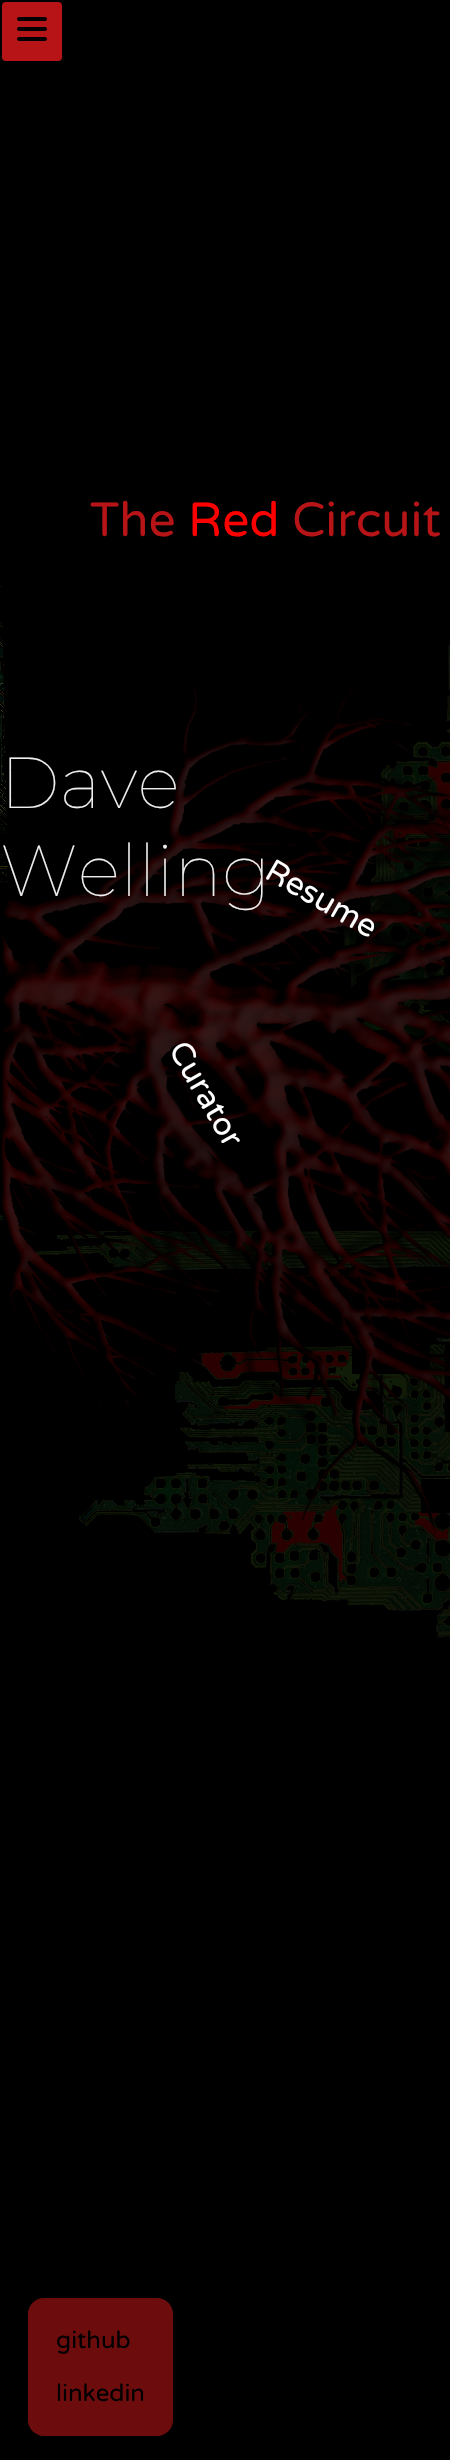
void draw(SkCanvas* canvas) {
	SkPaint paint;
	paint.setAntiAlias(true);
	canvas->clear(0xff000000);
	paint.setColor(0xffb61416);
	canvas->drawRoundRect(SkRect::MakeXYWH(2, 2, 60, 59), 4, 4, paint);
	paint.setColor(0xff000000);
	canvas->drawRoundRect(SkRect::MakeXYWH(17, 27, 30, 4), 2, 2, paint);
	canvas->drawRoundRect(SkRect::MakeXYWH(17, 17, 30, 4), 2, 2, paint);
	canvas->drawRoundRect(SkRect::MakeXYWH(17, 37, 30, 4), 2, 2, paint);
	SkFont f1(fontMgr->matchFamilyStyle("Varela Round", SkFontStyle::Normal()), 48);
	f1.setSubpixel(true);
	paint.setColor(0xffb61416);
	canvas->drawString("The", 90, 536, f1, paint);
	paint.setColor(0xffff0000);
	canvas->drawString("Red", 188, 536, f1, paint);
	paint.setColor(0xffb61416);
	canvas->drawString("Circuit", 292, 536, f1, paint);
	canvas->drawImageRect(SkImages::DeferredFromEncodedData(SkData::MakeFromFileName("img1.png")), SkRect::MakeXYWH(0, 583, 450, 1055), SkSamplingOptions());
	SkFont f2(fontMgr->matchFamilyStyle("Montserrat", SkFontStyle(100, SkFontStyle::kNormal_Width, SkFontStyle::kUpright_Slant)), 72);
	f2.setSubpixel(true);
	paint.setColor(0xffeeeeee);
	canvas->drawString("Dave", 0, 808, f2, paint);
	canvas->drawString("Welling", 0, 896, f2, paint);
	SkFont f3(fontMgr->matchFamilyStyle("Varela Round", SkFontStyle::Normal()), 32);
	f3.setSubpixel(true);
	paint.setColor(0xffffffff);
	canvas->save();
	canvas->rotate(30, 263, 877);
	canvas->drawString("Resume", 263, 877, f3, paint);
	canvas->restore();
	canvas->save();
	canvas->rotate(60, 168, 1049);
	canvas->drawString("Curator", 168, 1049, f3, paint);
	canvas->restore();
	paint.setColor(0xff6d0c0d);
	canvas->drawRoundRect(SkRect::MakeXYWH(28, 2298, 145, 138), 16, 16, paint);
	SkFont f4(fontMgr->matchFamilyStyle("Varela Round", SkFontStyle::Normal()), 24);
	f4.setSubpixel(true);
	paint.setColor(0xff000000);
	canvas->drawString("github", 56, 2348, f4, paint);
	canvas->drawString("linkedin", 56, 2401, f4, paint);
}
